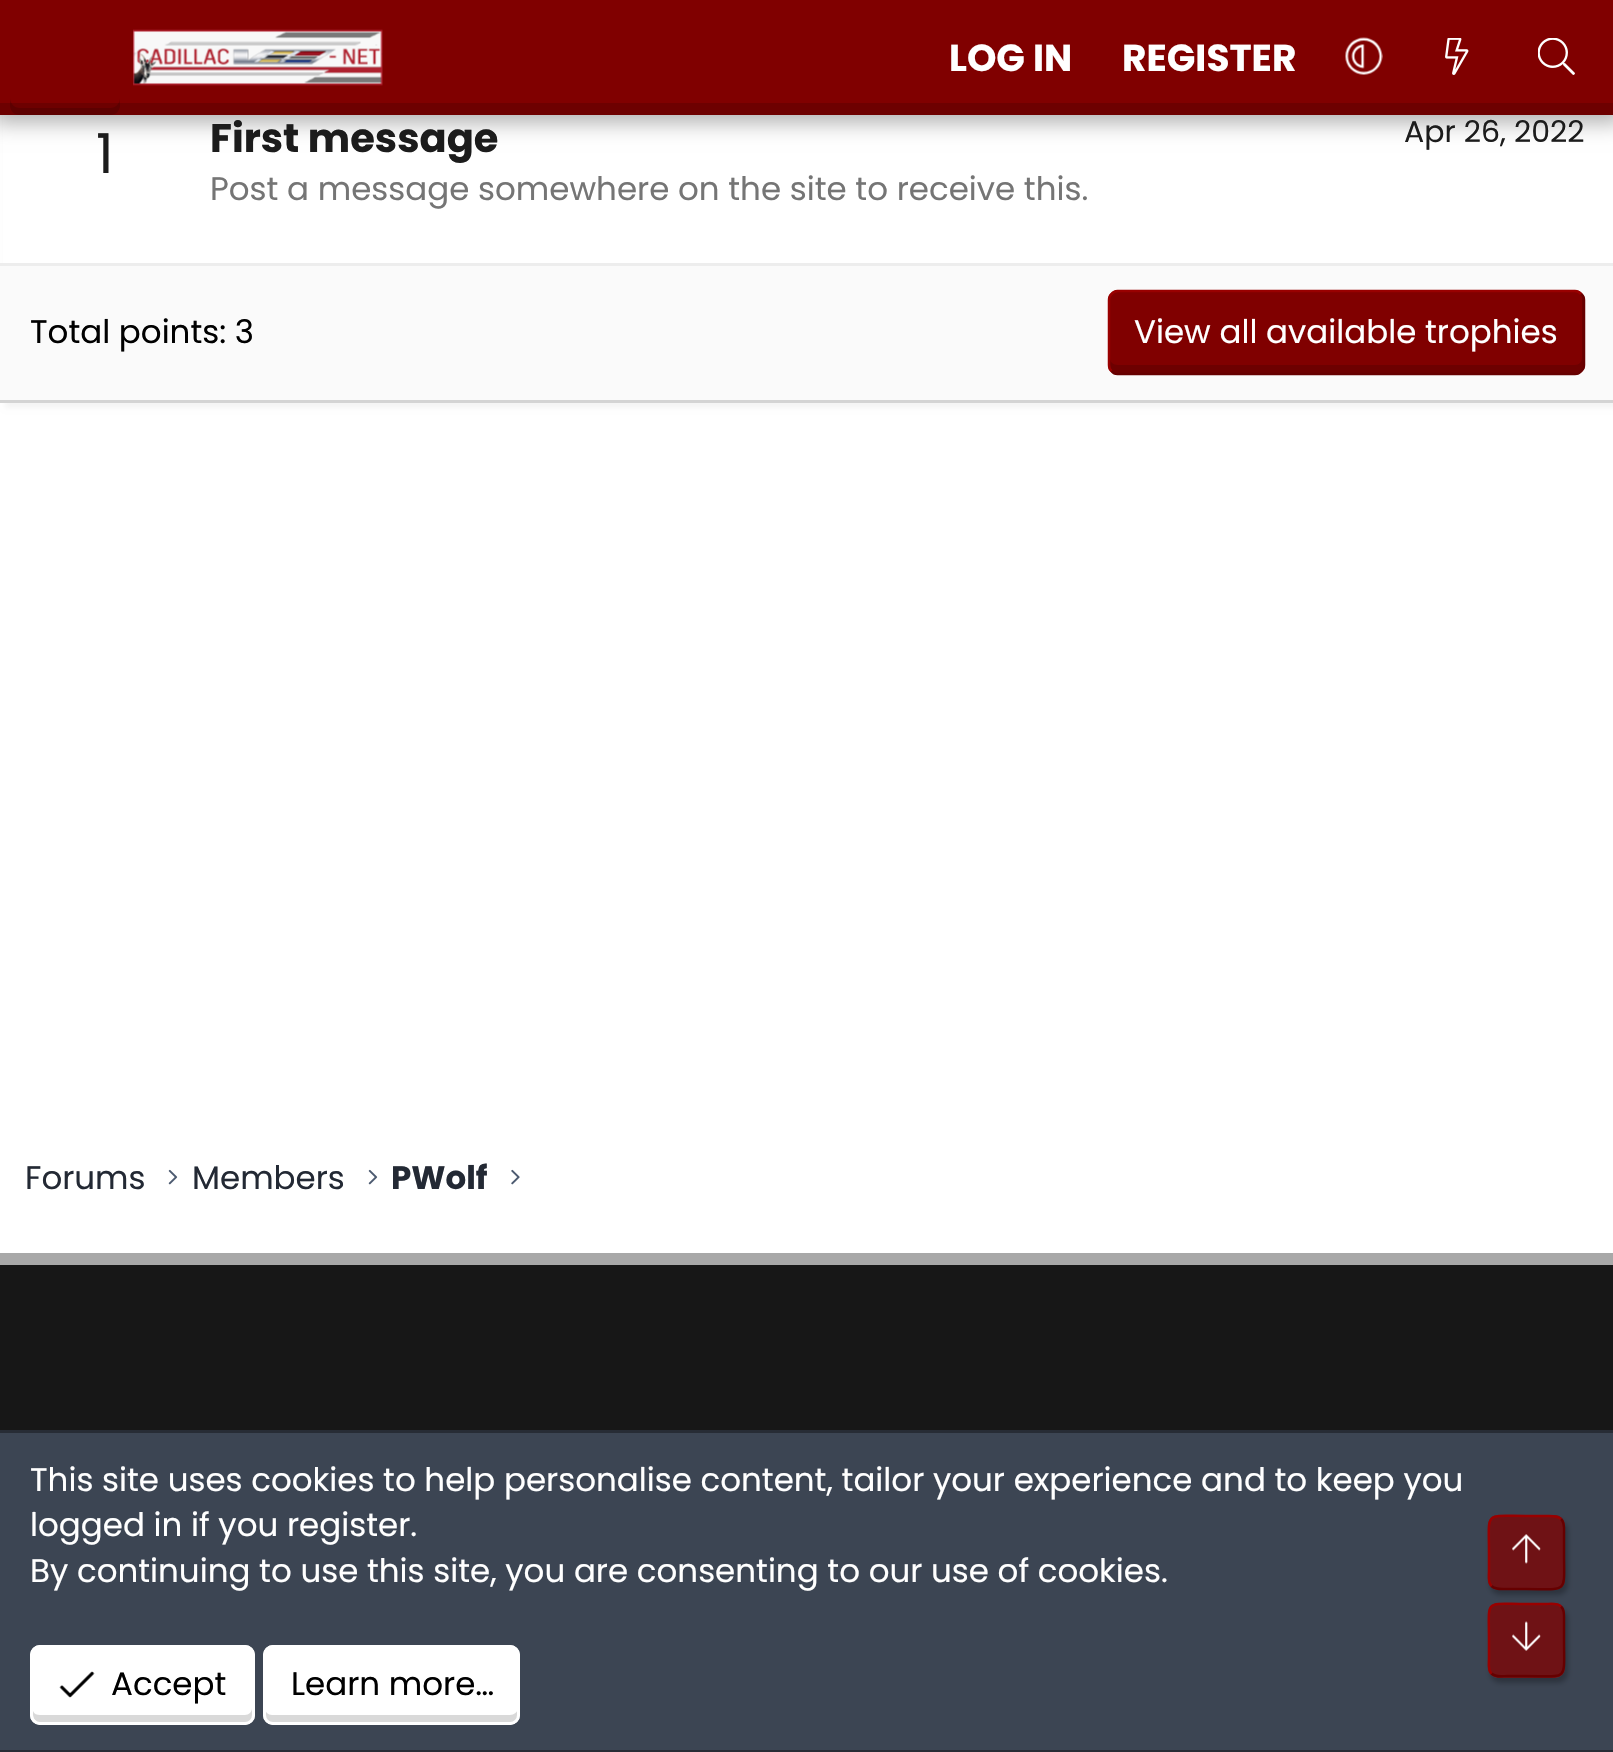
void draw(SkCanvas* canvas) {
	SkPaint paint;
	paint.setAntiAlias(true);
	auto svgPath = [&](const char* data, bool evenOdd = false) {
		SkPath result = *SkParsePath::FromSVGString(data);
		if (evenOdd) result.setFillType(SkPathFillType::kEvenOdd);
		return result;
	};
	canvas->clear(0xffffffff);
	paint.setColor(0x0a000000);
	paint.setMaskFilter(SkMaskFilter::MakeBlur(kNormal_SkBlurStyle, 2.5));
	canvas->drawRect(SkRect::MakeXYWH(5, -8, 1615, 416), paint);
	paint.setMaskFilter(nullptr);
	paint.setColor(0xffffffff);
	canvas->drawRect(SkRect::MakeXYWH(3, 115, 1610, 148), paint);
	paint.setColor(0x4d000000);
	paint.setMaskFilter(SkMaskFilter::MakeBlur(kNormal_SkBlurStyle, 10));
	canvas->drawRect(SkRect::MakeXYWH(-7, -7, 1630, 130), paint);
	paint.setMaskFilter(nullptr);
	paint.setColor(0xff800000);
	canvas->drawRect(SkRect::MakeXYWH(0, 0, 1613, 103), paint);
	paint.setColor(0xff6d0000);
	canvas->drawRect(SkRect::MakeXYWH(0, 103, 1613, 12), paint);
	canvas->drawImageRect(SkImages::DeferredFromEncodedData(SkData::MakeFromFileName("img1.png")), SkRect::MakeXYWH(133, 29, 250, 57), SkSamplingOptions());
	SkFont f1(fontMgr->matchFamilyStyle("Poppins", SkFontStyle::Bold()), 37.5);
	f1.setSubpixel(true);
	paint.setColor(0xffffffff);
	canvas->drawString("LOG IN", 949, 71, f1, paint);
	canvas->drawString("REGISTER", 1122, 71, f1, paint);
	canvas->drawImageRect(SkImages::DeferredFromEncodedData(SkData::MakeFromFileName("img2.png")), SkRect::MakeXYWH(1345, 37, 38, 38), SkSamplingOptions());
	canvas->drawImageRect(SkImages::DeferredFromEncodedData(SkData::MakeFromFileName("img3.png")), SkRect::MakeXYWH(1445, 38, 24, 37), SkSamplingOptions());
	canvas->drawImageRect(SkImages::DeferredFromEncodedData(SkData::MakeFromFileName("img4.png")), SkRect::MakeXYWH(1538, 38, 37, 37), SkSamplingOptions());
	paint.setColor(0x26000000);
	canvas->drawPath(svgPath("M10 98V105C10 111 14 115 20 115H110C116 115 120 111 120 105V98C120 103 116 108 110 108H20C14 108 10 103 10 98Z"), paint);
	paint.setColor(0xffd4d4d4);
	canvas->drawRect(SkRect::MakeXYWH(0, 400, 1613, 3), paint);
	SkFont f2(fontMgr->matchFamilyStyle("Poppins", SkFontStyle::Normal()), 55);
	f2.setSubpixel(true);
	paint.setColor(0xff1c1c1c);
	canvas->drawString("1", 96, 173, f2, paint);
	SkFont f3(fontMgr->matchFamilyStyle("Poppins", SkFontStyle::Bold()), 40);
	f3.setSubpixel(true);
	canvas->drawString("First message", 210, 152, f3, paint);
	SkFont f4(fontMgr->matchFamilyStyle("Poppins", SkFontStyle::Normal()), 30);
	f4.setSubpixel(true);
	canvas->drawString("Apr 26, 2022", 1404, 142, f4, paint);
	SkFont f5(fontMgr->matchFamilyStyle("Poppins", SkFontStyle::Normal()), 32.5);
	f5.setSubpixel(true);
	paint.setColor(0xff757575);
	canvas->drawString("Post a message somewhere on the site to receive this.", 210, 200, f5, paint);
	paint.setColor(0xfffafafa);
	canvas->drawRect(SkRect::MakeXYWH(0, 266, 1613, 134), paint);
	paint.setColor(0xffededed);
	canvas->drawRect(SkRect::MakeXYWH(0, 263, 1613, 3), paint);
	paint.setColor(0xff000000);
	canvas->drawString("Total points: 3", 30, 343, f5, paint);
	paint.setColor(0xff800000);
	canvas->drawRoundRect(SkRect::MakeXYWH(1108, 290, 477, 85), 10, 10, paint);
	paint.setColor(0xff6d0000);
	canvas->drawPath(svgPath("M1110 358V365C1110 369 1114 373 1118 373H1575C1579 373 1583 369 1583 365V301C1583 300 1583 298 1582 297V358C1582 362 1579 365 1575 365H1118C1113 365 1110 362 1110 358Z"), paint);
	paint.setStroke(true);
	paint.setStrokeWidth(2.5);
	paint.setColor(0xff660000);
	canvas->drawPath(svgPath("M1581 294C1583 295.5 1584 297.5 1584 300V365C1584 367.5 1583 369.5 1581 371C1579.5 373 1577.5 374 1575 374H1117.5C1115 374 1113 373 1111.5 371"), paint);
	paint.setColor(0xff990000);
	canvas->drawPath(svgPath("M1111.5 371C1109.5 369.5 1109 367.5 1109 365V300C1109 297.5 1109.5 295.5 1111.5 294C1113 292 1115 291 1117.5 291H1575C1577.5 291 1579.5 292 1581 294"), paint);
	paint.setStroke(false);
	paint.setColor(0xffffffff);
	canvas->drawString("View all available trophies", 1134, 343, f5, paint);
	paint.setColor(0xff232934);
	canvas->drawString("Forums", 25, 1189, f5, paint);
	canvas->drawImageRect(SkImages::DeferredFromEncodedData(SkData::MakeFromFileName("img5.png")), SkRect::MakeXYWH(168, 1169, 10, 16), SkSamplingOptions());
	canvas->drawString("Members", 192, 1189, f5, paint);
	canvas->drawImageRect(SkImages::DeferredFromEncodedData(SkData::MakeFromFileName("img5.png")), SkRect::MakeXYWH(368, 1169, 10, 16), SkSamplingOptions());
	SkFont f6(fontMgr->matchFamilyStyle("Poppins", SkFontStyle::Bold()), 32.5);
	f6.setSubpixel(true);
	canvas->drawString("PWolf", 391, 1189, f6, paint);
	canvas->drawImageRect(SkImages::DeferredFromEncodedData(SkData::MakeFromFileName("img6.png")), SkRect::MakeXYWH(511, 1169, 9, 16), SkSamplingOptions());
	paint.setColor(0xff171717);
	canvas->drawRect(SkRect::MakeXYWH(0, 1265, 1613, 165), paint);
	paint.setColor(0xffa8a8a8);
	canvas->drawRect(SkRect::MakeXYWH(0, 1253, 1613, 12), paint);
	paint.setColor(0xff3c4553);
	canvas->drawRect(SkRect::MakeXYWH(0, 1433, 1613, 317), paint);
	paint.setColor(0xff272c35);
	canvas->drawRect(SkRect::MakeXYWH(0, 1430, 1613, 3), paint);
	canvas->drawRect(SkRect::MakeXYWH(0, 1750, 1613, 2), paint);
	paint.setColor(0xffffffff);
	canvas->drawString("This site uses cookies to help personalise content, tailor your experience and to keep you", 30, 1491, f5, paint);
	canvas->drawString("logged in if you register.", 30, 1536, f5, paint);
	canvas->drawString("By continuing to use this site, you are consenting to our use of cookies.", 30, 1582, f5, paint);
	canvas->drawRoundRect(SkRect::MakeXYWH(30, 1645, 225, 80), 10, 10, paint);
	paint.setColor(0xffd9d9d9);
	canvas->drawPath(svgPath("M33 1711V1715C33 1719 37 1723 41 1723H245C249 1723 253 1719 253 1715V1656C253 1655 253 1653 252 1652V1708C252 1712 249 1715 245 1715H40C37 1715 34 1714 33 1711Z"), paint);
	paint.setStroke(true);
	paint.setStrokeWidth(3);
	paint.setColor(0xffffffff);
	canvas->drawRoundRect(SkRect::MakeXYWH(31.5, 1646.5, 222, 77), 8.5, 8.5, paint);
	canvas->drawImageRect(SkImages::DeferredFromEncodedData(SkData::MakeFromFileName("img7.png")), SkRect::MakeXYWH(59, 1671, 36, 27), SkSamplingOptions());
	paint.setStroke(false);
	paint.setColor(0xff000000);
	canvas->drawString("Accept", 111, 1695, f5, paint);
	paint.setColor(0xffffffff);
	canvas->drawRoundRect(SkRect::MakeXYWH(263, 1645, 257, 80), 10, 10, paint);
	paint.setColor(0xffd9d9d9);
	canvas->drawPath(svgPath("M265 1708V1715C265 1719 269 1723 273 1723H510C514 1723 518 1719 518 1715V1708C518 1712 514 1715 510 1715H272C268 1715 265 1712 265 1708Z"), paint);
	paint.setStroke(true);
	paint.setColor(0xffffffff);
	canvas->drawRoundRect(SkRect::MakeXYWH(264.5, 1646.5, 254, 77), 8.5, 8.5, paint);
	paint.setStroke(false);
	paint.setColor(0xff000000);
	canvas->drawString("Learn more…", 291, 1695, f5, paint);
	canvas->save();
	canvas->clipPath(svgPath("M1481 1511H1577V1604H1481ZM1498 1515H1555C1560.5 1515 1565 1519.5 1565 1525V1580C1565 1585.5 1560.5 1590 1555 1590H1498C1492.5 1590 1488 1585.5 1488 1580V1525C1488 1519.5 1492.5 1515 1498 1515Z", true), true);
	paint.setColor(0x40000000);
	paint.setMaskFilter(SkMaskFilter::MakeBlur(kNormal_SkBlurStyle, 2.5));
	canvas->drawRoundRect(SkRect::MakeXYWH(1490, 1520, 78, 75), 10, 10, paint);
	paint.setMaskFilter(nullptr);
	canvas->restore();
	paint.setColor(0xbf800000);
	canvas->drawRoundRect(SkRect::MakeXYWH(1488, 1515, 77, 75), 10, 10, paint);
	paint.setStroke(true);
	paint.setStrokeWidth(2.5);
	paint.setColor(0xff660000);
	canvas->drawPath(svgPath("M1561 1519C1565 1522.5 1564 1529.5 1564 1534V1552.5C1564 1594.5 1569 1589 1526 1589H1507C1502.5 1589 1495.5 1590 1491.5 1586"), paint);
	paint.setColor(0xff990000);
	canvas->drawPath(svgPath("M1491.5 1586C1487.5 1582.5 1489 1575.5 1489 1571V1552.5C1489 1510.5 1483.5 1516 1526 1516H1545.5C1550 1516 1557 1515 1561 1519"), paint);
	canvas->drawImageRect(SkImages::DeferredFromEncodedData(SkData::MakeFromFileName("img8.png")), SkRect::MakeXYWH(1512, 1534, 29, 30), SkSamplingOptions());
	canvas->save();
	canvas->clipPath(svgPath("M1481 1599H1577V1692H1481ZM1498 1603H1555C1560.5 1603 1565 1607.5 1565 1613V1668C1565 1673.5 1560.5 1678 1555 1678H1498C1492.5 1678 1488 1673.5 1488 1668V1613C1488 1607.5 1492.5 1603 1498 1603Z", true), true);
	paint.setStroke(false);
	paint.setColor(0x40000000);
	paint.setMaskFilter(SkMaskFilter::MakeBlur(kNormal_SkBlurStyle, 2.5));
	canvas->drawRoundRect(SkRect::MakeXYWH(1490, 1608, 78, 75), 10, 10, paint);
	paint.setMaskFilter(nullptr);
	canvas->restore();
	paint.setColor(0xbf800000);
	canvas->drawRoundRect(SkRect::MakeXYWH(1488, 1603, 77, 75), 10, 10, paint);
	paint.setStroke(true);
	paint.setColor(0xff660000);
	canvas->drawPath(svgPath("M1561 1606.5C1565 1610 1564 1617 1564 1621.5V1640C1564 1682 1569 1676 1526 1676H1507C1502.5 1676 1495.5 1677.5 1491.5 1673.5"), paint);
	paint.setColor(0xff990000);
	canvas->drawPath(svgPath("M1491.5 1673.5C1487.5 1670 1489 1663 1489 1658.5V1640C1489 1598 1483.5 1604 1526 1604H1545.5C1550 1604 1557 1602.5 1561 1606.5"), paint);
	canvas->drawImageRect(SkImages::DeferredFromEncodedData(SkData::MakeFromFileName("img9.png")), SkRect::MakeXYWH(1512, 1621, 29, 30), SkSamplingOptions());
}
